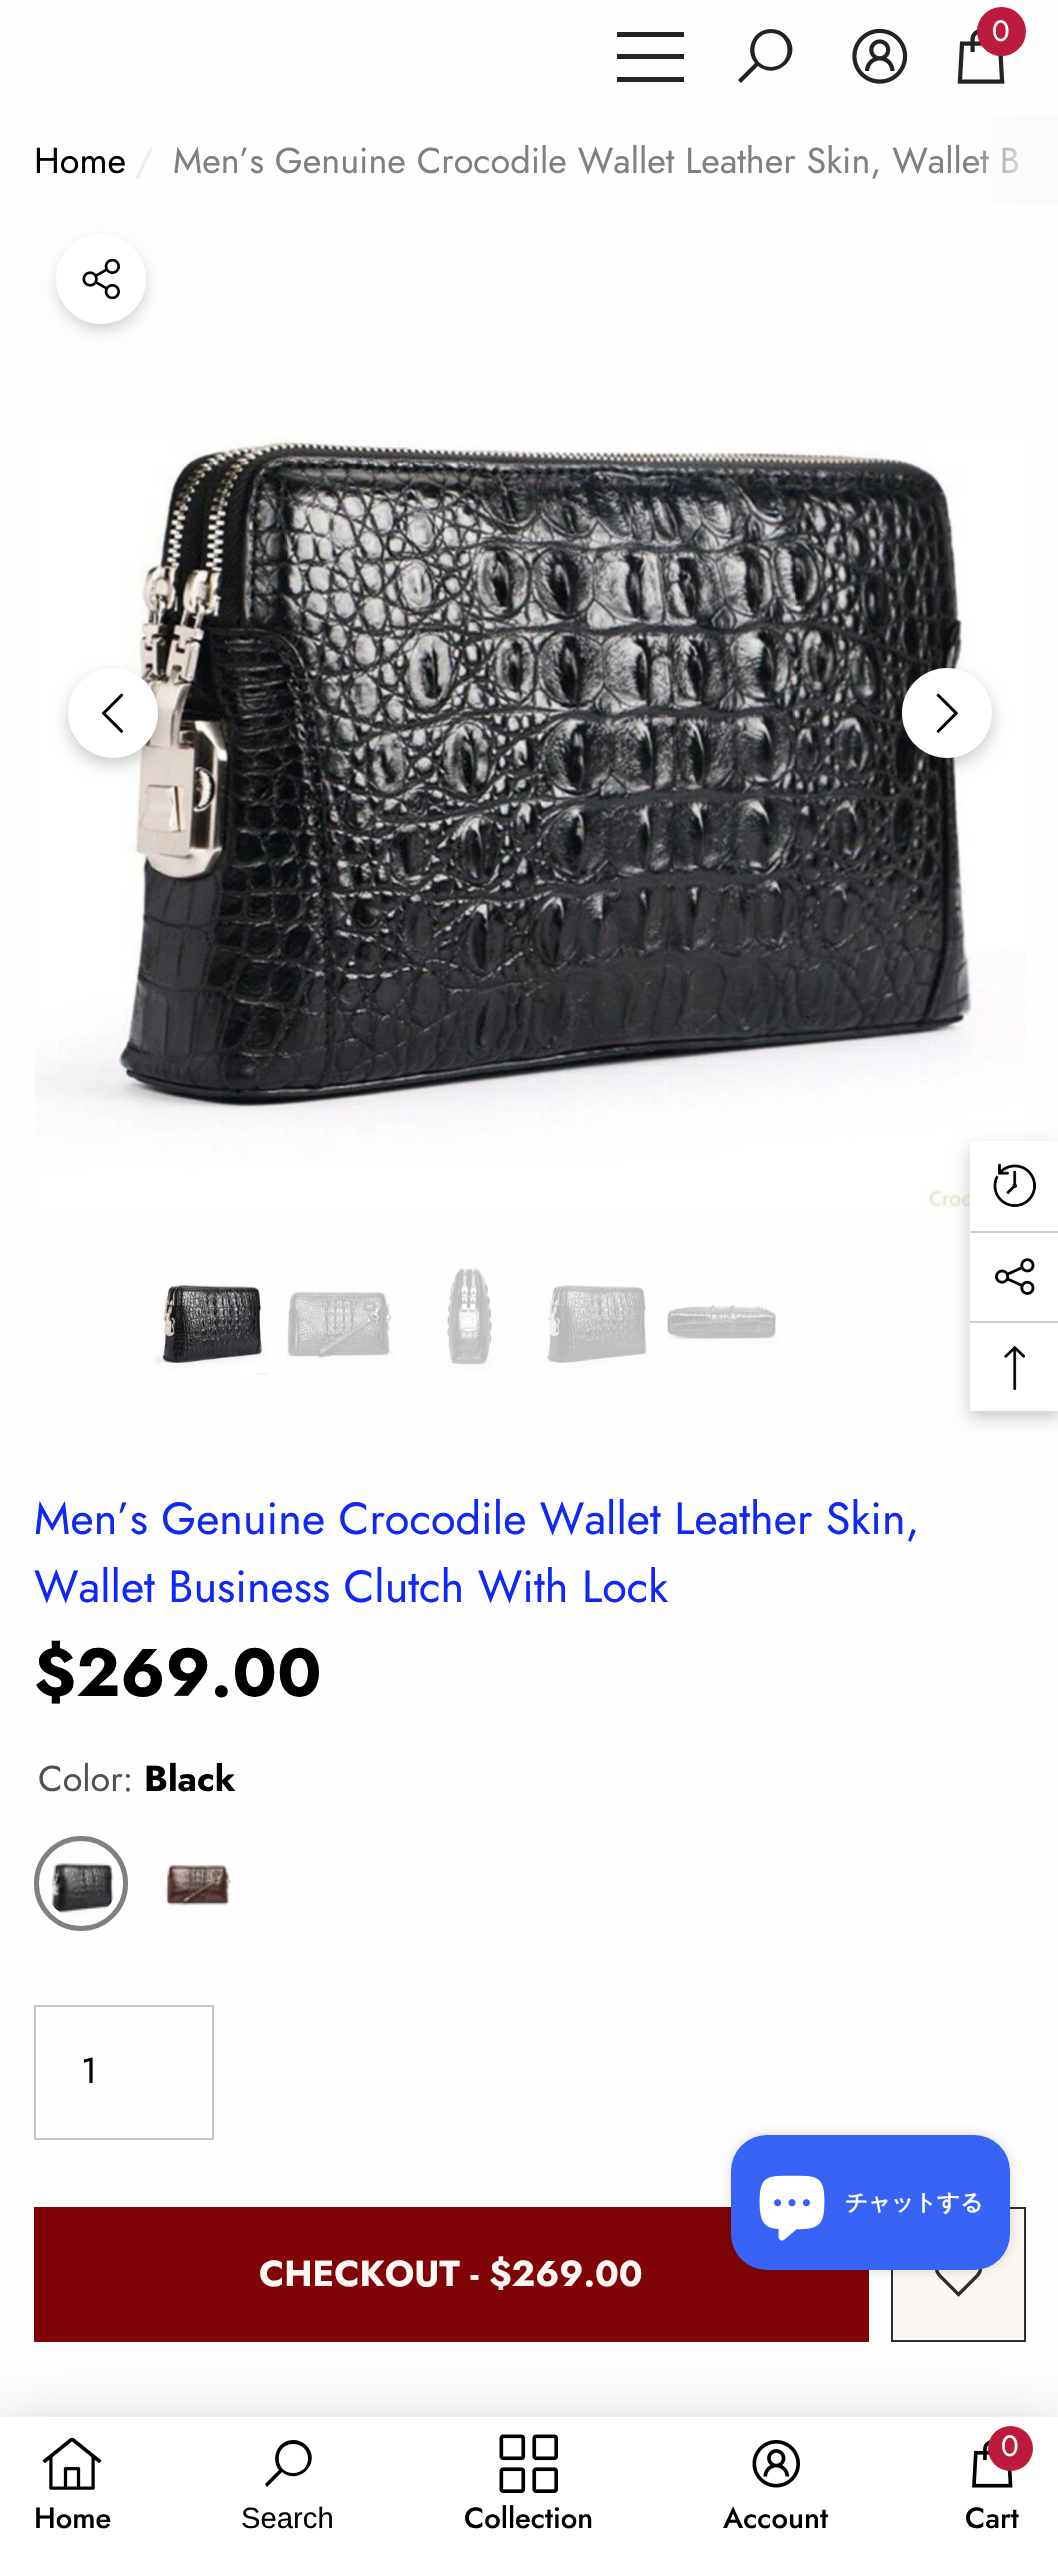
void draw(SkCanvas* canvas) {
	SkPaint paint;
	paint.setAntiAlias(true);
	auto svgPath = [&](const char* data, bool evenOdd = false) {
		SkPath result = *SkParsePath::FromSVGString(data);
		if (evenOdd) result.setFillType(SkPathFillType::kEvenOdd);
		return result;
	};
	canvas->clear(0xfffefefe);
	paint.setColor(0xff232323);
	canvas->drawRect(SkRect::MakeXYWH(617, 54, 67, 5), paint);
	canvas->drawRect(SkRect::MakeXYWH(617, 32, 67, 5), paint);
	canvas->drawRect(SkRect::MakeXYWH(617, 77, 67, 5), paint);
	canvas->drawPath(svgPath("M771 29C753 29 744 50 755 63L738 80L741 83L758 66C778 82 805 54 786 35C782 31 777 29 771 29ZM771 33C793 33 793 67 771 67C749 67 749 33 771 33Z"), paint);
	canvas->drawImageRect(SkImages::DeferredFromEncodedData(SkData::MakeFromFileName("img1.png")), SkRect::MakeXYWH(852, 28, 56, 56), SkSamplingOptions());
	canvas->drawImageRect(SkImages::DeferredFromEncodedData(SkData::MakeFromFileName("img2.png")), SkRect::MakeXYWH(957, 29, 48, 55), SkSamplingOptions());
	paint.setColor(0xffbc1b3b);
	canvas->drawCircle(1001.5, 31.5, 24.5, paint);
	SkFont f1(fontMgr->matchFamilyStyle("Jost", SkFontStyle::Normal()), 29.25);
	f1.setSubpixel(true);
	paint.setColor(0xffffffff);
	canvas->drawString("0", 992, 41, f1, paint);
	SkFont f2(fontMgr->matchFamilyStyle("Jost", SkFontStyle::Normal()), 36);
	f2.setSubpixel(true);
	paint.setColor(0xff808080);
	canvas->drawString("Men’s Genuine Crocodile Wallet Leather Skin, Wallet B", 173, 173, f2, paint);
	{
		const SkColor colors[] = {0xccfafafa, 0x00fafafa};
		const float stops[] = {0.38, 1};
		const SkPoint ends[] = {{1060, 160}, {970, 160}};
		paint.setShader(SkGradientShader::MakeLinear(ends, colors, stops, 2, SkTileMode::kClamp));
		paint.setAlpha(255);
	}
	canvas->drawRect(SkRect::MakeXYWH(972, 115, 86, 90), paint);
	paint.setShader(nullptr);
	paint.setColor(0xff000000);
	canvas->drawString("Home", 34, 173, f2, paint);
	paint.setColor(0xffececec);
	canvas->drawString("/", 135, 173, f2, paint);
	paint.setColor(0x33000000);
	paint.setMaskFilter(SkMaskFilter::MakeBlur(kNormal_SkBlurStyle, 8));
	canvas->drawRoundRect(SkRect::MakeXYWH(59, 243, 85, 86), 42.5, 42.5, paint);
	paint.setMaskFilter(nullptr);
	paint.setColor(0xffffffff);
	canvas->drawCircle(101, 279, 44, paint);
	paint.setStroke(true);
	paint.setStrokeWidth(2);
	canvas->drawCircle(101, 279, 44, paint);
	canvas->drawImageRect(SkImages::DeferredFromEncodedData(SkData::MakeFromFileName("img3.png")), SkRect::MakeXYWH(82, 259, 38, 40), SkSamplingOptions());
	canvas->drawImageRect(SkImages::DeferredFromEncodedData(SkData::MakeFromFileName("img4.png")), SkRect::MakeXYWH(35, 437, 991, 775), SkSamplingOptions());
	paint.setStroke(false);
	paint.setColor(0x33000000);
	paint.setMaskFilter(SkMaskFilter::MakeBlur(kNormal_SkBlurStyle, 8));
	canvas->drawRoundRect(SkRect::MakeXYWH(68, 675, 90, 90), 45, 45, paint);
	paint.setMaskFilter(nullptr);
	paint.setColor(0xffffffff);
	canvas->drawCircle(113, 713, 45, paint);
	canvas->drawImageRect(SkImages::DeferredFromEncodedData(SkData::MakeFromFileName("img5.png")), SkRect::MakeXYWH(101, 693, 23, 40), SkSamplingOptions());
	paint.setColor(0x33000000);
	paint.setMaskFilter(SkMaskFilter::MakeBlur(kNormal_SkBlurStyle, 8));
	canvas->drawRoundRect(SkRect::MakeXYWH(902, 675, 90, 90), 45, 45, paint);
	paint.setMaskFilter(nullptr);
	paint.setColor(0xffffffff);
	canvas->drawCircle(947, 713, 45, paint);
	canvas->drawImageRect(SkImages::DeferredFromEncodedData(SkData::MakeFromFileName("img6.png")), SkRect::MakeXYWH(936, 693, 22, 40), SkSamplingOptions());
	canvas->drawImageRect(SkImages::DeferredFromEncodedData(SkData::MakeFromFileName("img7.png")), SkRect::MakeXYWH(154, 1283, 114, 92), SkSamplingOptions());
	canvas->drawImageRect(SkImages::DeferredFromEncodedData(SkData::MakeFromFileName("img8.png")), SkRect::MakeXYWH(286, 1291, 110, 84), SkSamplingOptions());
	canvas->drawImageRect(SkImages::DeferredFromEncodedData(SkData::MakeFromFileName("img9.png")), SkRect::MakeXYWH(447, 1268, 76, 107), SkSamplingOptions());
	canvas->drawImageRect(SkImages::DeferredFromEncodedData(SkData::MakeFromFileName("img10.png")), SkRect::MakeXYWH(544, 1284, 108, 91), SkSamplingOptions());
	canvas->drawImageRect(SkImages::DeferredFromEncodedData(SkData::MakeFromFileName("img11.png")), SkRect::MakeXYWH(667, 1304, 113, 71), SkSamplingOptions());
	SkFont f3(fontMgr->matchFamilyStyle("Jost", SkFontStyle::Normal()), 45);
	f3.setSubpixel(true);
	paint.setColor(0xff0f28f7);
	canvas->drawString("Men’s Genuine Crocodile Wallet Leather Skin,", 34, 1534, f3, paint);
	canvas->drawString("Wallet Business Clutch With Lock", 34, 1602, f3, paint);
	SkFont f4(fontMgr->matchFamilyStyle("Jost", SkFontStyle::Bold()), 67.5);
	f4.setSubpixel(true);
	paint.setColor(0xff000000);
	canvas->drawString("$269.00", 34, 1696, f4, paint);
	paint.setColor(0xff505050);
	canvas->drawString("Color:", 38, 1791, f2, paint);
	SkFont f5(fontMgr->matchFamilyStyle("Jost", SkFontStyle::Bold()), 36);
	f5.setSubpixel(true);
	paint.setColor(0xff000000);
	canvas->drawString("Black", 144, 1791, f5, paint);
	paint.setStroke(true);
	paint.setStrokeWidth(5);
	paint.setColor(0xff808080);
	canvas->drawRoundRect(SkRect::MakeXYWH(36.5, 1838.5, 89, 90), 44.5, 44.5, paint);
	canvas->drawImageRect(SkImages::DeferredFromEncodedData(SkData::MakeFromFileName("img12.png")), SkRect::MakeXYWH(51, 1863, 63, 52), SkSamplingOptions());
	canvas->drawImageRect(SkImages::DeferredFromEncodedData(SkData::MakeFromFileName("img13.png")), SkRect::MakeXYWH(162, 1862, 70, 46), SkSamplingOptions());
	paint.setStrokeWidth(2);
	paint.setColor(0xffc7c7c7);
	canvas->drawRect(SkRect::MakeXYWH(35, 2006, 178, 133), paint);
	paint.setStroke(false);
	paint.setColor(0xff000000);
	canvas->drawString("1", 81, 2083, f2, paint);
	paint.setColor(0xff800405);
	canvas->drawRect(SkRect::MakeXYWH(34, 2207, 835, 135), paint);
	paint.setColor(0xfffbf7f3);
	canvas->drawString("CHECKOUT - $269.00", 259, 2286, f5, paint);
	canvas->drawRect(SkRect::MakeXYWH(892, 2208, 133, 133), paint);
	paint.setStroke(true);
	paint.setColor(0xff2d2d2d);
	canvas->drawRect(SkRect::MakeXYWH(892, 2208, 133, 133), paint);
	canvas->drawImageRect(SkImages::DeferredFromEncodedData(SkData::MakeFromFileName("img14.png")), SkRect::MakeXYWH(935, 2268, 48, 29), SkSamplingOptions());
	paint.setStroke(false);
	paint.setColor(0x33000000);
	paint.setMaskFilter(SkMaskFilter::MakeBlur(kNormal_SkBlurStyle, 8));
	canvas->drawRect(SkRect::MakeXYWH(970, 1148, 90, 270), paint);
	paint.setMaskFilter(nullptr);
	paint.setColor(0xffffffff);
	canvas->drawRect(SkRect::MakeXYWH(970, 1141, 88, 270), paint);
	canvas->drawImageRect(SkImages::DeferredFromEncodedData(SkData::MakeFromFileName("img15.png")), SkRect::MakeXYWH(993, 1163, 43, 44), SkSamplingOptions());
	paint.setColor(0xffcccccc);
	canvas->drawRect(SkRect::MakeXYWH(970, 1231, 88, 2), paint);
	canvas->drawImageRect(SkImages::DeferredFromEncodedData(SkData::MakeFromFileName("img16.png")), SkRect::MakeXYWH(995, 1258, 40, 37), SkSamplingOptions());
	canvas->drawRect(SkRect::MakeXYWH(970, 1321, 88, 2), paint);
	canvas->drawImageRect(SkImages::DeferredFromEncodedData(SkData::MakeFromFileName("img17.png")), SkRect::MakeXYWH(1004, 1346, 22, 44), SkSamplingOptions());
	paint.setColor(0x26000000);
	paint.setMaskFilter(SkMaskFilter::MakeBlur(kNormal_SkBlurStyle, 5.5));
	canvas->drawRoundRect(SkRect::MakeXYWH(731, 2135, 279, 135), 36, 36, paint);
	paint.setMaskFilter(nullptr);
	paint.setColor(0xff3764f4);
	canvas->drawRoundRect(SkRect::MakeXYWH(731, 2135, 279, 135), 36, 36, paint);
	canvas->drawImageRect(SkImages::DeferredFromEncodedData(SkData::MakeFromFileName("img18.png")), SkRect::MakeXYWH(759, 2175, 66, 66), SkSamplingOptions());
	SkFont f6(fontMgr->matchFamilyStyle("WenQuanYi Zen Hei", SkFontStyle::Bold()), 22.5);
	f6.setSubpixel(true);
	paint.setColor(0xffffffff);
	canvas->drawString("チャットする", 845, 2210, f6, paint);
	paint.setColor(0x33000000);
	paint.setMaskFilter(SkMaskFilter::MakeBlur(kNormal_SkBlurStyle, 30.5));
	canvas->drawRect(SkRect::MakeXYWH(0, 2430, 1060, 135), paint);
	paint.setMaskFilter(nullptr);
	paint.setColor(0xffffffff);
	canvas->drawRect(SkRect::MakeXYWH(0, 2417, 1058, 134), paint);
	canvas->drawImageRect(SkImages::DeferredFromEncodedData(SkData::MakeFromFileName("img19.png")), SkRect::MakeXYWH(42, 2437, 60, 53), SkSamplingOptions());
	SkFont f7(fontMgr->matchFamilyStyle("Jost", SkFontStyle(500, SkFontStyle::kNormal_Width, SkFontStyle::kUpright_Slant)), 29.25);
	f7.setSubpixel(true);
	paint.setColor(0xff000000);
	canvas->drawString("Home", 34, 2528, f7, paint);
	canvas->drawPath(svgPath("M293 2440C278 2440 270 2458 279 2470L265 2484L267 2487L282 2472C299 2486 323 2462 306 2445C303 2442 298 2440 293 2440ZM293 2444C313 2444 313 2473 293 2473C274 2473 274 2444 293 2444Z"), paint);
	SkFont f8(fontMgr->matchFamilyStyle("Liberation Sans", SkFontStyle::Normal()), 29.25);
	f8.setSubpixel(true);
	canvas->drawString("Search", 241, 2528, f8, paint);
	canvas->drawImageRect(SkImages::DeferredFromEncodedData(SkData::MakeFromFileName("img20.png")), SkRect::MakeXYWH(499, 2434, 59, 59), SkSamplingOptions());
	canvas->drawString("Collection", 464, 2528, f7, paint);
	canvas->drawImageRect(SkImages::DeferredFromEncodedData(SkData::MakeFromFileName("img21.png")), SkRect::MakeXYWH(752, 2440, 48, 48), SkSamplingOptions());
	canvas->drawString("Account", 723, 2528, f7, paint);
	canvas->drawImageRect(SkImages::DeferredFromEncodedData(SkData::MakeFromFileName("img22.png")), SkRect::MakeXYWH(972, 2440, 41, 48), SkSamplingOptions());
	paint.setColor(0xffbc1b3b);
	canvas->drawCircle(1010.5, 2448.5, 22.5, paint);
	paint.setColor(0xffffffff);
	canvas->drawString("0", 1001, 2456, f1, paint);
	paint.setColor(0xff000000);
	canvas->drawString("Cart", 965, 2528, f7, paint);
}
